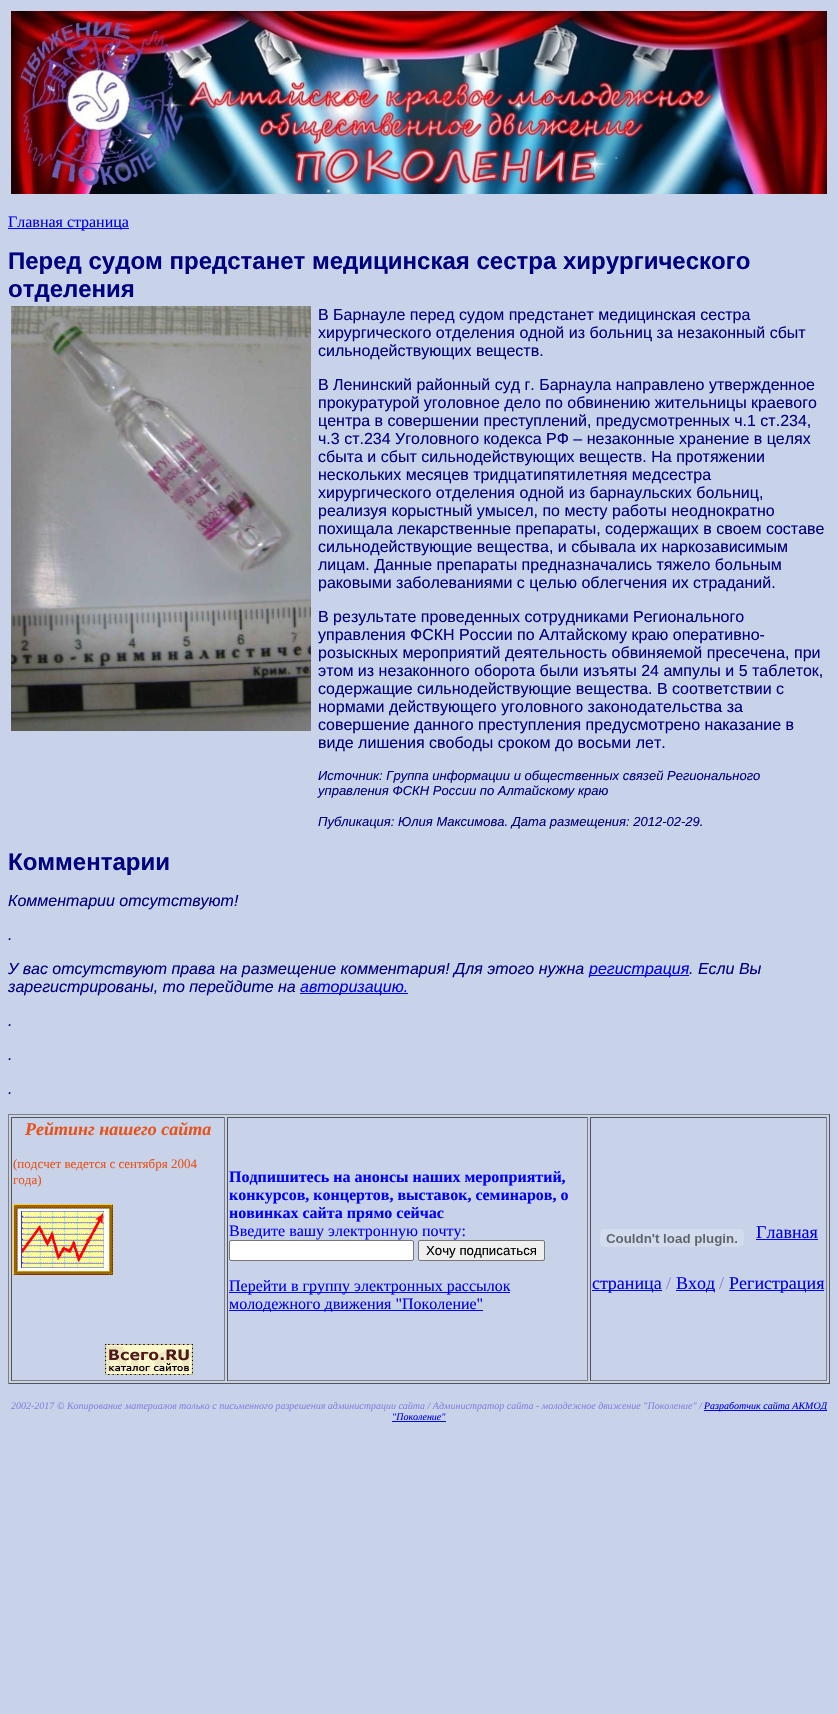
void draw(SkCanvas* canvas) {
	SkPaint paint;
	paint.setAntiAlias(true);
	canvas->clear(0xffc8d3e9);
	canvas->drawImageRect(SkImages::DeferredFromEncodedData(SkData::MakeFromFileName("img1.png")), SkRect::MakeXYWH(11, 11, 816, 183), SkSamplingOptions());
	paint.setColor(0xff0000ee);
	canvas->drawRect(SkRect::MakeXYWH(8, 228, 121, 1), paint);
	SkFont f1(fontMgr->matchFamilyStyle("Liberation Serif", SkFontStyle::Normal()), 16);
	f1.setSubpixel(true);
	canvas->drawString("Главная страница", 8, 227, f1, paint);
	SkFont f2(fontMgr->matchFamilyStyle("Liberation Sans", SkFontStyle::Bold()), 24);
	f2.setSubpixel(true);
	paint.setColor(0xff000080);
	canvas->drawString("Перед судом предстанет медицинская сестра хирургического", 8, 269, f2, paint);
	canvas->drawString("отделения", 8, 297, f2, paint);
	canvas->drawImageRect(SkImages::DeferredFromEncodedData(SkData::MakeFromFileName("img2.png")), SkRect::MakeXYWH(11, 306, 300, 425), SkSamplingOptions());
	SkFont f3(fontMgr->matchFamilyStyle("Liberation Sans", SkFontStyle::Normal()), 16);
	f3.setSubpixel(true);
	canvas->drawString("В Барнауле перед судом предстанет медицинская сестра", 318, 320, f3, paint);
	canvas->drawString("хирургического отделения одной из больниц за незаконный сбыт", 318, 338, f3, paint);
	canvas->drawString("сильнодействующих веществ.", 318, 356, f3, paint);
	canvas->drawString("В Ленинский районный суд г. Барнаула направлено утвержденное", 318, 390, f3, paint);
	canvas->drawString("прокуратурой уголовное дело по обвинению жительницы краевого", 318, 408, f3, paint);
	canvas->drawString("центра в совершении преступлений, предусмотренных ч.1 ст.234,", 318, 426, f3, paint);
	canvas->drawString("ч.3 ст.234 Уголовного кодекса РФ – незаконные хранение в целях", 318, 444, f3, paint);
	canvas->drawString("сбыта и сбыт сильнодействующих веществ. На протяжении", 318, 462, f3, paint);
	canvas->drawString("нескольких месяцев тридцатипятилетняя медсестра", 318, 480, f3, paint);
	canvas->drawString("хирургического отделения одной из барнаульских больниц,", 318, 498, f3, paint);
	canvas->drawString("реализуя корыстный умысел, по месту работы неоднократно", 318, 516, f3, paint);
	canvas->drawString("похищала лекарственные препараты, содержащих в своем составе", 318, 534, f3, paint);
	canvas->drawString("сильнодействующие вещества, и сбывала их наркозависимым", 318, 552, f3, paint);
	canvas->drawString("лицам. Данные препараты предназначались тяжело больным", 318, 570, f3, paint);
	canvas->drawString("раковыми заболеваниями с целью облегчения их страданий.", 318, 588, f3, paint);
	canvas->drawString("В результате проведенных сотрудниками Регионального", 318, 622, f3, paint);
	canvas->drawString("управления ФСКН России по Алтайскому краю оперативно-", 318, 640, f3, paint);
	canvas->drawString("розыскных мероприятий деятельность обвиняемой пресечена, при", 318, 658, f3, paint);
	canvas->drawString("этом из незаконного оборота были изъяты 24 ампулы и 5 таблеток,", 318, 676, f3, paint);
	canvas->drawString("содержащие сильнодействующие вещества. В соответствии с", 318, 694, f3, paint);
	canvas->drawString("нормами действующего уголовного законодательства за", 318, 712, f3, paint);
	canvas->drawString("совершение данного преступления предусмотрено наказание в", 318, 730, f3, paint);
	canvas->drawString("виде лишения свободы сроком до восьми лет.", 318, 748, f3, paint);
	SkFont f4(fontMgr->matchFamilyStyle("Liberation Sans", SkFontStyle::Italic()), 13);
	f4.setSubpixel(true);
	canvas->drawString("Источник: Группа информации и общественных связей Регионального", 318, 780, f4, paint);
	canvas->drawString("управления ФСКН России по Алтайскому краю", 318, 795, f4, paint);
	canvas->drawString("Публикация: Юлия Максимова. Дата размещения: 2012-02-29.", 318, 826, f4, paint);
	canvas->drawString("Комментарии", 8, 870, f2, paint);
	SkFont f5(fontMgr->matchFamilyStyle("Liberation Sans", SkFontStyle::Italic()), 16);
	f5.setSubpixel(true);
	canvas->drawString("Комментарии отсутствуют!", 8, 906, f5, paint);
	canvas->drawString(".", 8, 940, f5, paint);
	canvas->drawString("У вас отсутствуют права на размещение комментария! Для этого нужна", 8, 974, f5, paint);
	paint.setColor(0xff0000ee);
	canvas->drawRect(SkRect::MakeXYWH(589, 975, 100, 1), paint);
	canvas->drawString("регистрация", 589, 974, f5, paint);
	paint.setColor(0xff000080);
	canvas->drawString(". Если Вы", 689, 974, f5, paint);
	canvas->drawString("зарегистрированы, то перейдите на", 8, 992, f5, paint);
	paint.setColor(0xff0000ee);
	canvas->drawRect(SkRect::MakeXYWH(300, 993, 108, 1), paint);
	canvas->drawString("авторизацию.", 300, 992, f5, paint);
	paint.setColor(0xff000080);
	canvas->drawString(".", 8, 1026, f5, paint);
	canvas->drawString(".", 8, 1060, f5, paint);
	canvas->drawString(".", 8, 1094, f5, paint);
	paint.setColor(0xff808080);
	canvas->drawRect(SkRect::MakeXYWH(8, 1114, 822, 1), paint);
	paint.setColor(0xff555555);
	canvas->drawRect(SkRect::MakeXYWH(829, 1114, 1, 270), paint);
	canvas->drawRect(SkRect::MakeXYWH(8, 1383, 822, 1), paint);
	paint.setColor(0xff808080);
	canvas->drawRect(SkRect::MakeXYWH(8, 1114, 1, 270), paint);
	paint.setColor(0xff555555);
	canvas->drawRect(SkRect::MakeXYWH(11, 1117, 214, 1), paint);
	paint.setColor(0xff808080);
	canvas->drawRect(SkRect::MakeXYWH(224, 1117, 1, 264), paint);
	canvas->drawRect(SkRect::MakeXYWH(11, 1380, 214, 1), paint);
	paint.setColor(0xff555555);
	canvas->drawRect(SkRect::MakeXYWH(11, 1117, 1, 264), paint);
	SkFont f6(fontMgr->matchFamilyStyle("Liberation Serif", SkFontStyle::BoldItalic()), 18);
	f6.setSubpixel(true);
	paint.setColor(0xffe7521a);
	canvas->drawString("Рейтинг нашего сайта", 25, 1135, f6, paint);
	SkFont f7(fontMgr->matchFamilyStyle("Liberation Serif", SkFontStyle::Normal()), 13);
	f7.setSubpixel(true);
	canvas->drawString("(подсчет ведется с сентября 2004", 13, 1168, f7, paint);
	canvas->drawString("года)", 13, 1184, f7, paint);
	canvas->drawImageRect(SkImages::DeferredFromEncodedData(SkData::MakeFromFileName("img3.png")), SkRect::MakeXYWH(13, 1204, 100, 71), SkSamplingOptions());
	canvas->drawImageRect(SkImages::DeferredFromEncodedData(SkData::MakeFromFileName("img4.png")), SkRect::MakeXYWH(105, 1344, 88, 31), SkSamplingOptions());
	paint.setColor(0xff555555);
	canvas->drawRect(SkRect::MakeXYWH(227, 1117, 361, 1), paint);
	paint.setColor(0xff808080);
	canvas->drawRect(SkRect::MakeXYWH(587, 1117, 1, 264), paint);
	canvas->drawRect(SkRect::MakeXYWH(227, 1380, 361, 1), paint);
	paint.setColor(0xff555555);
	canvas->drawRect(SkRect::MakeXYWH(227, 1117, 1, 264), paint);
	SkFont f8(fontMgr->matchFamilyStyle("Liberation Serif", SkFontStyle::Bold()), 16);
	f8.setSubpixel(true);
	paint.setColor(0xff0000ff);
	canvas->drawString("Подпишитесь на анонсы наших мероприятий,", 229, 1182, f8, paint);
	canvas->drawString("конкурсов, концертов, выставок, семинаров, о", 229, 1200, f8, paint);
	canvas->drawString("новинках сайта прямо сейчас", 229, 1218, f8, paint);
	canvas->drawString("Введите вашу электронную почту:", 229, 1236, f1, paint);
	paint.setColor(0xffffffff);
	canvas->drawRoundRect(SkRect::MakeXYWH(229.5, 1240.5, 184, 20), 1.5, 1.5, paint);
	paint.setStroke(true);
	paint.setStrokeWidth(1);
	paint.setColor(0xff767676);
	canvas->drawRoundRect(SkRect::MakeXYWH(229.5, 1240.5, 184, 20), 1.5, 1.5, paint);
	paint.setStroke(false);
	paint.setColor(0xffefefef);
	canvas->drawRoundRect(SkRect::MakeXYWH(418.5, 1240.5, 126, 20), 1.5, 1.5, paint);
	paint.setStroke(true);
	paint.setColor(0xff767676);
	canvas->drawRoundRect(SkRect::MakeXYWH(418.5, 1240.5, 126, 20), 1.5, 1.5, paint);
	SkFont f9(fontMgr->matchFamilyStyle("Liberation Sans", SkFontStyle::Normal()), 13.25);
	f9.setSubpixel(true);
	paint.setStroke(false);
	paint.setColor(0xff000000);
	canvas->drawString("Хочу подписаться", 426, 1255, f9, paint);
	paint.setColor(0xff0000ee);
	canvas->drawRect(SkRect::MakeXYWH(229, 1292, 281, 1), paint);
	canvas->drawString("Перейти в группу электронных рассылок", 229, 1291, f1, paint);
	canvas->drawRect(SkRect::MakeXYWH(229, 1310, 254, 1), paint);
	canvas->drawString("молодежного движения \"Поколение\"", 229, 1309, f1, paint);
	paint.setColor(0xff555555);
	canvas->drawRect(SkRect::MakeXYWH(590, 1117, 237, 1), paint);
	paint.setColor(0xff808080);
	canvas->drawRect(SkRect::MakeXYWH(826, 1117, 1, 264), paint);
	canvas->drawRect(SkRect::MakeXYWH(590, 1380, 237, 1), paint);
	paint.setColor(0xff555555);
	canvas->drawRect(SkRect::MakeXYWH(590, 1117, 1, 264), paint);
	canvas->drawImageRect(SkImages::DeferredFromEncodedData(SkData::MakeFromFileName("img5.png")), SkRect::MakeXYWH(600, 1229, 144, 18), SkSamplingOptions());
	SkFont f10(fontMgr->matchFamilyStyle("Liberation Serif", SkFontStyle::Normal()), 18);
	f10.setSubpixel(true);
	paint.setColor(0xff0000ee);
	canvas->drawString("Главная", 756, 1238, f10, paint);
	canvas->drawRect(SkRect::MakeXYWH(756, 1239, 62, 1), paint);
	canvas->drawRect(SkRect::MakeXYWH(592, 1290, 70, 1), paint);
	canvas->drawString("страница", 592, 1289, f10, paint);
	paint.setColor(0xff8a81df);
	canvas->drawString("/", 666, 1289, f10, paint);
	paint.setColor(0xff0000ee);
	canvas->drawRect(SkRect::MakeXYWH(676, 1290, 39, 1), paint);
	canvas->drawString("Вход", 676, 1289, f10, paint);
	paint.setColor(0xff8a81df);
	canvas->drawString("/", 719, 1289, f10, paint);
	paint.setColor(0xff0000ee);
	canvas->drawRect(SkRect::MakeXYWH(729, 1290, 95, 1), paint);
	canvas->drawString("Регистрация", 729, 1289, f10, paint);
	SkFont f11(fontMgr->matchFamilyStyle("Liberation Serif", SkFontStyle::Italic()), 10);
	f11.setSubpixel(true);
	paint.setColor(0xff8a81df);
	canvas->drawString("2002-2017 © Копирование материалов только с письменного разрешения администрации сайта / Администратор сайта - молодежное движение \"Поколение\" /", 11, 1409, f11, paint);
	paint.setColor(0xff0000ee);
	canvas->drawRect(SkRect::MakeXYWH(704, 1410, 123, 1), paint);
	canvas->drawString("Разработчик сайта АКМОД", 704, 1409, f11, paint);
	canvas->drawString("\"Поколение\"", 392, 1420, f11, paint);
	canvas->drawRect(SkRect::MakeXYWH(392, 1421, 54, 1), paint);
}
